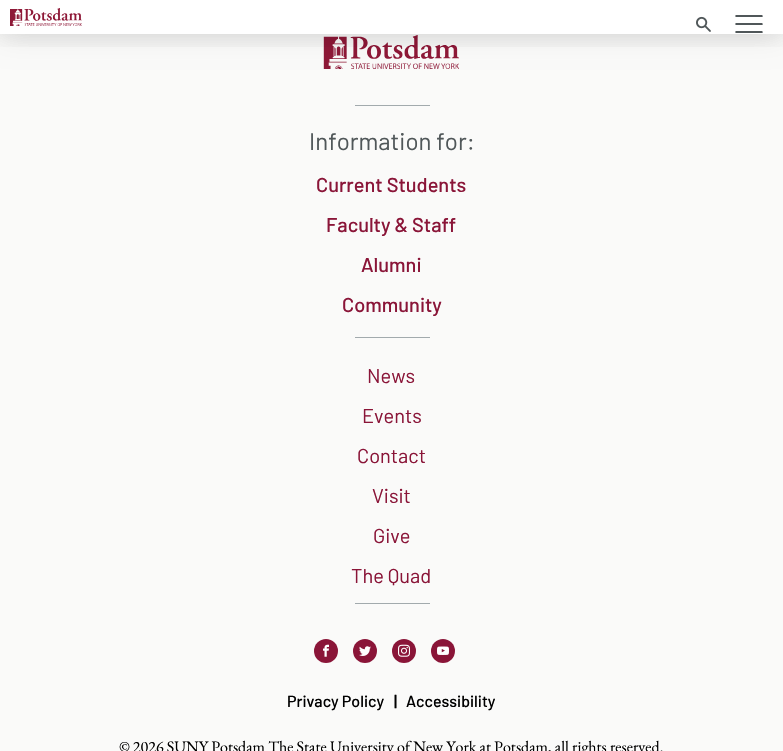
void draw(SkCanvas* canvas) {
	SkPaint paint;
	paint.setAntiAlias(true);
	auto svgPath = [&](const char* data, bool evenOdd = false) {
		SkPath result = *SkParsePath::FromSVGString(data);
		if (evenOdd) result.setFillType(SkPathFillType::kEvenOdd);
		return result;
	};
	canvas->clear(0xfffafaf9);
	canvas->drawImageRect(SkImages::DeferredFromEncodedData(SkData::MakeFromFileName("img3.png")), SkRect::MakeXYWH(323, 35, 136, 34), SkSamplingOptions());
	paint.setColor(0x1a000000);
	paint.setMaskFilter(SkMaskFilter::MakeBlur(kNormal_SkBlurStyle, 15));
	canvas->drawRect(SkRect::MakeXYWH(0, 0, 783, 34), paint);
	paint.setMaskFilter(nullptr);
	paint.setColor(0xffffffff);
	canvas->drawRect(SkRect::MakeXYWH(0, 0, 783, 34), paint);
	canvas->save();
	canvas->clipRect(SkRect::MakeXYWH(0, 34, 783, 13));
	paint.setColor(0x1a000000);
	paint.setMaskFilter(SkMaskFilter::MakeBlur(kNormal_SkBlurStyle, 15));
	canvas->drawRect(SkRect::MakeXYWH(0, 0, 783, 34), paint);
	paint.setMaskFilter(nullptr);
	canvas->restore();
	canvas->drawImageRect(SkImages::DeferredFromEncodedData(SkData::MakeFromFileName("img1.png")), SkRect::MakeXYWH(10, 8, 72, 18), SkSamplingOptions());
	canvas->drawImageRect(SkImages::DeferredFromEncodedData(SkData::MakeFromFileName("img2.png")), SkRect::MakeXYWH(696, 16, 15, 16), SkSamplingOptions());
	paint.setColor(0xff505759);
	canvas->drawPath(svgPath("M737 15H762L762.5 15.5C763.5 16 762.5 17 762 17H737C734.5 17 734.5 15 737 15ZM737 23H762L762.5 23.5C763.5 24 762.5 25 762 25H737C734.5 25 734.5 23 737 23ZM737 31H762L762.5 31.5C763.5 32 762.5 33 762 33H737C734.5 33 734.5 31 737 31Z"), paint);
	paint.setColor(0xffa2aaad);
	canvas->drawRect(SkRect::MakeXYWH(355, 105, 75, 1), paint);
	SkFont f1(fontMgr->matchFamilyStyle("Barlow", SkFontStyle::Normal()), 24);
	f1.setSubpixel(true);
	paint.setColor(0xff505759);
	canvas->drawString("Information for:", 309, 150, f1, paint);
	SkFont f2(fontMgr->matchFamilyStyle("Barlow", SkFontStyle(500, SkFontStyle::kNormal_Width, SkFontStyle::kUpright_Slant)), 20);
	f2.setSubpixel(true);
	paint.setColor(0xff8a1538);
	canvas->drawString("Current Students", 316, 192, f2, paint);
	canvas->drawString("Faculty & Staff", 326, 232, f2, paint);
	canvas->drawString("Alumni", 361, 272, f2, paint);
	canvas->drawString("Community", 342, 312, f2, paint);
	paint.setColor(0xffa2aaad);
	canvas->drawRect(SkRect::MakeXYWH(355, 337, 75, 1), paint);
	SkFont f3(fontMgr->matchFamilyStyle("Barlow", SkFontStyle::Normal()), 20);
	f3.setSubpixel(true);
	paint.setColor(0xff8a1538);
	canvas->drawString("News", 367, 383, f3, paint);
	canvas->drawString("Events", 362, 423, f3, paint);
	canvas->drawString("Contact", 357, 463, f3, paint);
	canvas->drawString("Visit", 372, 503, f3, paint);
	canvas->drawString("Give", 373, 543, f3, paint);
	canvas->drawString("The Quad", 351, 583, f3, paint);
	paint.setColor(0xffa2aaad);
	canvas->drawRect(SkRect::MakeXYWH(355, 603, 75, 1), paint);
	paint.setColor(0xff8a1538);
	canvas->drawCircle(326, 651, 12, paint);
	canvas->drawImageRect(SkImages::DeferredFromEncodedData(SkData::MakeFromFileName("img4.png")), SkRect::MakeXYWH(323, 644, 6, 13), SkSamplingOptions());
	canvas->drawCircle(365, 651, 12, paint);
	canvas->drawImageRect(SkImages::DeferredFromEncodedData(SkData::MakeFromFileName("img5.png")), SkRect::MakeXYWH(359, 646, 12, 10), SkSamplingOptions());
	canvas->drawCircle(404, 651, 12, paint);
	canvas->drawImageRect(SkImages::DeferredFromEncodedData(SkData::MakeFromFileName("img6.png")), SkRect::MakeXYWH(398, 644, 12, 13), SkSamplingOptions());
	canvas->drawCircle(443, 651, 12, paint);
	canvas->drawImageRect(SkImages::DeferredFromEncodedData(SkData::MakeFromFileName("img7.png")), SkRect::MakeXYWH(437, 646, 12, 9), SkSamplingOptions());
	SkFont f4(fontMgr->matchFamilyStyle("Barlow", SkFontStyle(500, SkFontStyle::kNormal_Width, SkFontStyle::kUpright_Slant)), 16);
	f4.setSubpixel(true);
	paint.setColor(0xff000000);
	canvas->drawString("Privacy Policy", 287, 707, f4, paint);
	SkFont f5(fontMgr->matchFamilyStyle("Barlow", SkFontStyle(600, SkFontStyle::kNormal_Width, SkFontStyle::kUpright_Slant)), 16);
	f5.setSubpixel(true);
	canvas->drawString("|", 394, 707, f5, paint);
	canvas->drawString("Accessibility", 406, 707, f4, paint);
	SkFont f6(fontMgr->matchFamilyStyle("EB Garamond", SkFontStyle::Normal()), 16);
	f6.setSubpixel(true);
	canvas->drawString("© 2026 SUNY Potsdam The State University of New York at Potsdam, all rights reserved.", 119, 752, f6, paint);
}
